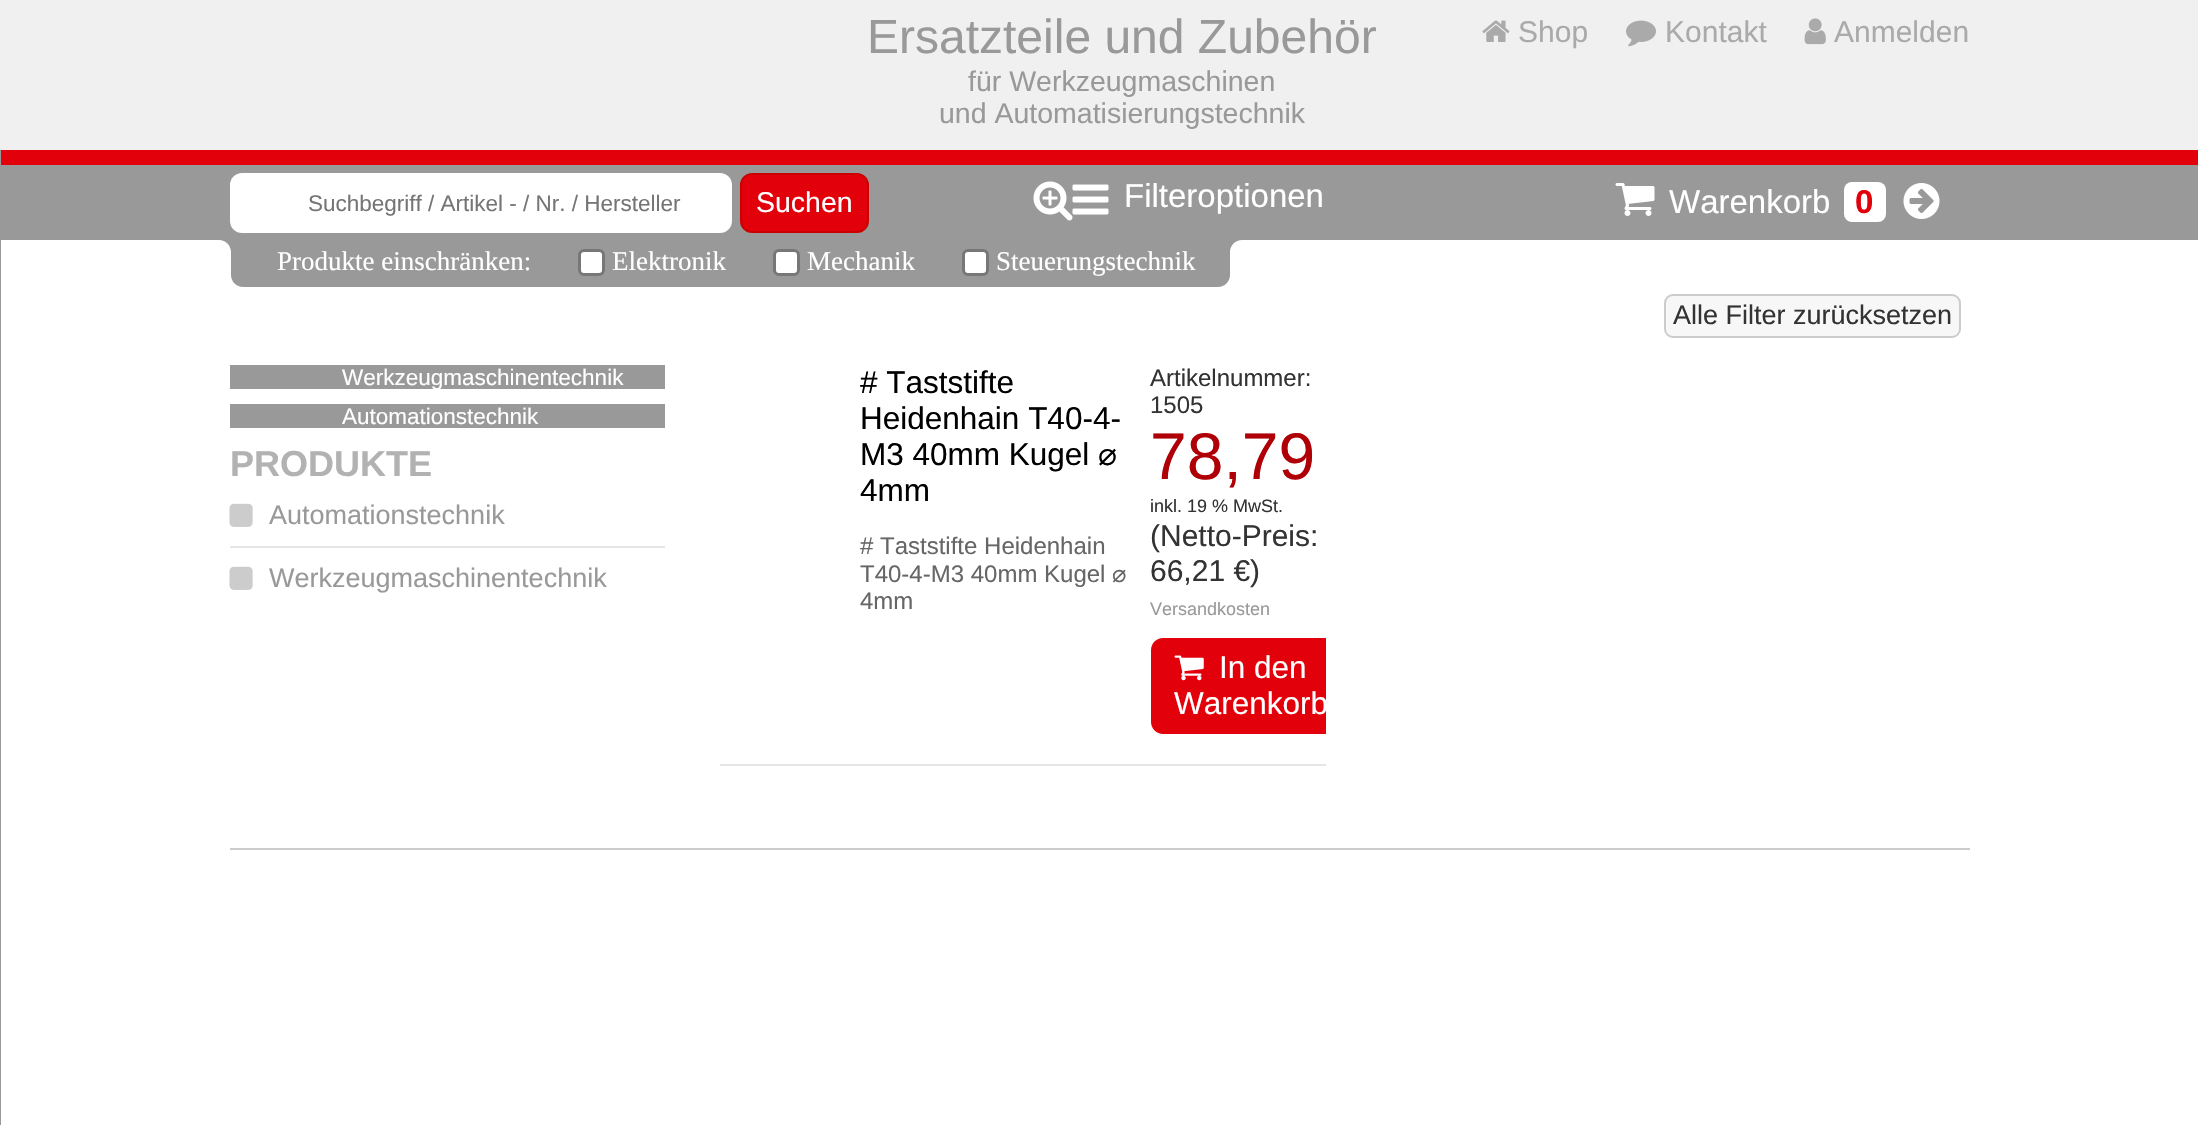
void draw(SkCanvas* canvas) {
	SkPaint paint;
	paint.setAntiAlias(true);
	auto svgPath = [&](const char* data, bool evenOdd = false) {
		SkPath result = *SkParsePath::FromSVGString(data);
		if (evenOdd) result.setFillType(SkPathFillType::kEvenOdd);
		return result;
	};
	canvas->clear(0xffffffff);
	paint.setColor(0xfff0f0f0);
	canvas->drawRect(SkRect::MakeXYWH(0, 0, 2198, 150), paint);
	SkFont f1(fontMgr->matchFamilyStyle("Liberation Sans", SkFontStyle::Normal()), 48);
	f1.setSubpixel(true);
	paint.setColor(0xff999999);
	canvas->drawString("Ersatzteile und Zubehör", 867, 53, f1, paint);
	SkFont f2(fontMgr->matchFamilyStyle("Liberation Sans", SkFontStyle::Normal()), 28.5);
	f2.setSubpixel(true);
	canvas->drawString("für Werkzeugmaschinen", 968, 91, f2, paint);
	canvas->drawString("und Automatisierungstechnik", 939, 123, f2, paint);
	canvas->drawImageRect(SkImages::DeferredFromEncodedData(SkData::MakeFromFileName("img1.png")), SkRect::MakeXYWH(1482, 20, 28, 22), SkSamplingOptions());
	SkFont f3(fontMgr->matchFamilyStyle("Liberation Sans", SkFontStyle::Normal()), 30);
	f3.setSubpixel(true);
	paint.setColor(0xffaaaaaa);
	canvas->drawString("Shop", 1518, 42, f3, paint);
	canvas->drawImageRect(SkImages::DeferredFromEncodedData(SkData::MakeFromFileName("img2.png")), SkRect::MakeXYWH(1626, 20, 30, 27), SkSamplingOptions());
	canvas->drawString("Kontakt", 1665, 42, f3, paint);
	canvas->drawImageRect(SkImages::DeferredFromEncodedData(SkData::MakeFromFileName("img3.png")), SkRect::MakeXYWH(1804, 18, 22, 27), SkSamplingOptions());
	canvas->drawString("Anmelden", 1834, 42, f3, paint);
	paint.setColor(0xff999999);
	canvas->drawRect(SkRect::MakeXYWH(0, 150, 1, 975), paint);
	paint.setColor(0xffe2000a);
	canvas->drawRect(SkRect::MakeXYWH(1, 150, 2197, 15), paint);
	paint.setColor(0xff999999);
	canvas->drawRect(SkRect::MakeXYWH(1, 165, 2197, 75), paint);
	paint.setColor(0xffffffff);
	canvas->drawRoundRect(SkRect::MakeXYWH(230, 173, 502, 60), 12, 12, paint);
	SkFont f4(fontMgr->matchFamilyStyle("Liberation Sans", SkFontStyle::Normal()), 22.5);
	f4.setSubpixel(true);
	paint.setColor(0xff757575);
	canvas->drawString("Suchbegriff / Artikel - / Nr. / Hersteller", 308, 211, f4, paint);
	paint.setColor(0xffe2000a);
	canvas->drawRoundRect(SkRect::MakeXYWH(741, 174, 127, 58), 11, 11, paint);
	paint.setStroke(true);
	paint.setStrokeWidth(2);
	paint.setColor(0xffcc0000);
	canvas->drawRoundRect(SkRect::MakeXYWH(741, 174, 127, 58), 11, 11, paint);
	paint.setStroke(false);
	paint.setColor(0xffffffff);
	canvas->drawString("Suchen", 756, 212, f2, paint);
	canvas->drawImageRect(SkImages::DeferredFromEncodedData(SkData::MakeFromFileName("img4.png")), SkRect::MakeXYWH(1033, 181, 76, 40), SkSamplingOptions());
	SkFont f5(fontMgr->matchFamilyStyle("Liberation Sans", SkFontStyle::Normal()), 33);
	f5.setSubpixel(true);
	canvas->drawString("Filteroptionen", 1124, 207, f5, paint);
	canvas->drawImageRect(SkImages::DeferredFromEncodedData(SkData::MakeFromFileName("img5.png")), SkRect::MakeXYWH(1615, 183, 40, 33), SkSamplingOptions());
	canvas->drawString("Warenkorb", 1669, 213, f5, paint);
	canvas->drawRoundRect(SkRect::MakeXYWH(1844, 182, 42, 40), 8, 8, paint);
	SkFont f6(fontMgr->matchFamilyStyle("Liberation Sans", SkFontStyle::Bold()), 33);
	f6.setSubpixel(true);
	paint.setColor(0xffe2000a);
	canvas->drawString("0", 1855, 213, f6, paint);
	canvas->drawImageRect(SkImages::DeferredFromEncodedData(SkData::MakeFromFileName("img6.png")), SkRect::MakeXYWH(1903, 183, 37, 36), SkSamplingOptions());
	paint.setColor(0xff999999);
	canvas->drawRect(SkRect::MakeXYWH(219, 240, 12, 12), paint);
	paint.setColor(0xffffffff);
	canvas->drawPath(svgPath("M219 240C225.5 240 231 245.5 231 252H219ZM219 252Z", true), paint);
	paint.setColor(0xff999999);
	canvas->drawRect(SkRect::MakeXYWH(1230, 240, 12, 12), paint);
	paint.setColor(0xffffffff);
	canvas->drawPath(svgPath("M1242 240V252H1230C1230 245.5 1235.5 240 1242 240ZM1242 252Z", true), paint);
	paint.setColor(0xff999999);
	canvas->drawPath(svgPath("M231 240H1230V275C1230 281.5 1224.5 287 1218 287H243C236.5 287 231 281.5 231 275Z"), paint);
	SkFont f7(fontMgr->matchFamilyStyle("Liberation Serif", SkFontStyle::Normal()), 27);
	f7.setSubpixel(true);
	paint.setColor(0xffffffff);
	canvas->drawString("Produkte einschränken:", 277, 270, f7, paint);
	canvas->drawRoundRect(SkRect::MakeXYWH(579.5, 250.5, 24, 24), 4.5, 4.5, paint);
	paint.setStroke(true);
	paint.setStrokeWidth(3);
	paint.setColor(0xff777777);
	canvas->drawRoundRect(SkRect::MakeXYWH(579.5, 250.5, 24, 24), 4.5, 4.5, paint);
	paint.setStroke(false);
	paint.setColor(0xffffffff);
	canvas->drawString("Elektronik", 612, 270, f7, paint);
	canvas->drawRoundRect(SkRect::MakeXYWH(774.5, 250.5, 24, 24), 4.5, 4.5, paint);
	paint.setStroke(true);
	paint.setColor(0xff777777);
	canvas->drawRoundRect(SkRect::MakeXYWH(774.5, 250.5, 24, 24), 4.5, 4.5, paint);
	paint.setStroke(false);
	paint.setColor(0xffffffff);
	canvas->drawString("Mechanik", 807, 270, f7, paint);
	canvas->drawRoundRect(SkRect::MakeXYWH(963.5, 250.5, 24, 24), 4.5, 4.5, paint);
	paint.setStroke(true);
	paint.setColor(0xff777777);
	canvas->drawRoundRect(SkRect::MakeXYWH(963.5, 250.5, 24, 24), 4.5, 4.5, paint);
	paint.setStroke(false);
	paint.setColor(0xffffffff);
	canvas->drawString("Steuerungstechnik", 996, 270, f7, paint);
	paint.setColor(0xfff7f7f7);
	canvas->drawRoundRect(SkRect::MakeXYWH(1665, 295, 295, 42), 8, 8, paint);
	paint.setStroke(true);
	paint.setStrokeWidth(2);
	paint.setColor(0xffcccccc);
	canvas->drawRoundRect(SkRect::MakeXYWH(1665, 295, 295, 42), 8, 8, paint);
	SkFont f8(fontMgr->matchFamilyStyle("Liberation Sans", SkFontStyle::Normal()), 27);
	f8.setSubpixel(true);
	paint.setStroke(false);
	paint.setColor(0xff333333);
	canvas->drawString("Alle Filter zurücksetzen", 1673, 324, f8, paint);
	paint.setColor(0xff999999);
	canvas->drawRect(SkRect::MakeXYWH(230, 365, 435, 24), paint);
	paint.setColor(0xffffffff);
	canvas->drawString("Werkzeugmaschinentechnik", 342, 385, f4, paint);
	paint.setColor(0xff999999);
	canvas->drawRect(SkRect::MakeXYWH(230, 404, 435, 24), paint);
	paint.setColor(0xffffffff);
	canvas->drawString("Automationstechnik", 342, 424, f4, paint);
	SkFont f9(fontMgr->matchFamilyStyle("Liberation Sans", SkFontStyle::Bold()), 36);
	f9.setSubpixel(true);
	paint.setColor(0xffb2b2b2);
	canvas->drawString("PRODUKTE", 230, 476, f9, paint);
	paint.setColor(0xffe6e6e6);
	canvas->drawRect(SkRect::MakeXYWH(230, 546, 435, 2), paint);
	canvas->drawImageRect(SkImages::DeferredFromEncodedData(SkData::MakeFromFileName("img7.png")), SkRect::MakeXYWH(229, 503, 24, 24), SkSamplingOptions());
	paint.setColor(0xff999999);
	canvas->drawString("Automationstechnik", 269, 524, f8, paint);
	canvas->drawImageRect(SkImages::DeferredFromEncodedData(SkData::MakeFromFileName("img7.png")), SkRect::MakeXYWH(229, 566, 24, 24), SkSamplingOptions());
	canvas->drawString("Werkzeugmaschinentechnik", 269, 587, f8, paint);
	paint.setColor(0xffe6e6e6);
	canvas->drawRect(SkRect::MakeXYWH(720, 764, 606, 2), paint);
	SkFont f10(fontMgr->matchFamilyStyle("Liberation Sans", SkFontStyle::Normal()), 31.5);
	f10.setSubpixel(true);
	paint.setColor(0xff000000);
	canvas->drawString("# Taststifte", 860, 393, f10, paint);
	canvas->drawString("Heidenhain T40-4-", 860, 429, f10, paint);
	canvas->drawString("M3 40mm Kugel", 860, 465, f10, paint);
	SkFont f11(fontMgr->matchFamilyStyle("DejaVu Sans", SkFontStyle::Normal()), 31.5);
	f11.setSubpixel(true);
	canvas->drawString("⌀", 1098, 465, f11, paint);
	canvas->drawString("4mm", 860, 501, f10, paint);
	SkFont f12(fontMgr->matchFamilyStyle("Liberation Sans", SkFontStyle::Normal()), 24);
	f12.setSubpixel(true);
	paint.setColor(0xff666666);
	canvas->drawString("# Taststifte Heidenhain", 860, 554, f12, paint);
	canvas->drawString("T40-4-M3 40mm Kugel", 860, 582, f12, paint);
	SkFont f13(fontMgr->matchFamilyStyle("DejaVu Sans", SkFontStyle::Normal()), 24);
	f13.setSubpixel(true);
	canvas->drawString("⌀", 1112, 582, f13, paint);
	canvas->drawString("4mm", 860, 609, f12, paint);
	paint.setColor(0xff333333);
	canvas->drawString("Artikelnummer:", 1150, 386, f12, paint);
	canvas->drawString("1505", 1150, 413, f12, paint);
	SkFont f14(fontMgr->matchFamilyStyle("Liberation Sans", SkFontStyle::Normal()), 66);
	f14.setSubpixel(true);
	paint.setColor(0xffaf0008);
	canvas->drawString("78,79", 1150, 479, f14, paint);
	SkFont f15(fontMgr->matchFamilyStyle("Liberation Sans", SkFontStyle::Normal()), 18);
	f15.setSubpixel(true);
	paint.setColor(0xff333333);
	canvas->drawString("inkl. 19 % MwSt.", 1150, 512, f15, paint);
	canvas->drawString("(Netto-Preis:", 1150, 546, f3, paint);
	canvas->drawString("66,21 €)", 1150, 581, f3, paint);
	paint.setColor(0xff999999);
	canvas->drawString("Versandkosten", 1150, 615, f15, paint);
	paint.setColor(0xffe2000a);
	canvas->drawPath(svgPath("M1163 638H1326V734H1163C1156.5 734 1151 728.5 1151 722V650C1151 643.5 1156.5 638 1163 638Z"), paint);
	canvas->drawImageRect(SkImages::DeferredFromEncodedData(SkData::MakeFromFileName("img8.png")), SkRect::MakeXYWH(1174, 655, 30, 26), SkSamplingOptions());
	paint.setColor(0xffffffff);
	canvas->drawString("In den", 1219, 678, f10, paint);
	canvas->save();
	canvas->clipRect(SkRect::MakeXYWH(1151, 365, 175, 369));
	canvas->drawString("Warenkorb", 1174, 714, f10, paint);
	canvas->restore();
	paint.setColor(0xffcccccc);
	canvas->drawRect(SkRect::MakeXYWH(230, 848, 1740, 2), paint);
}
